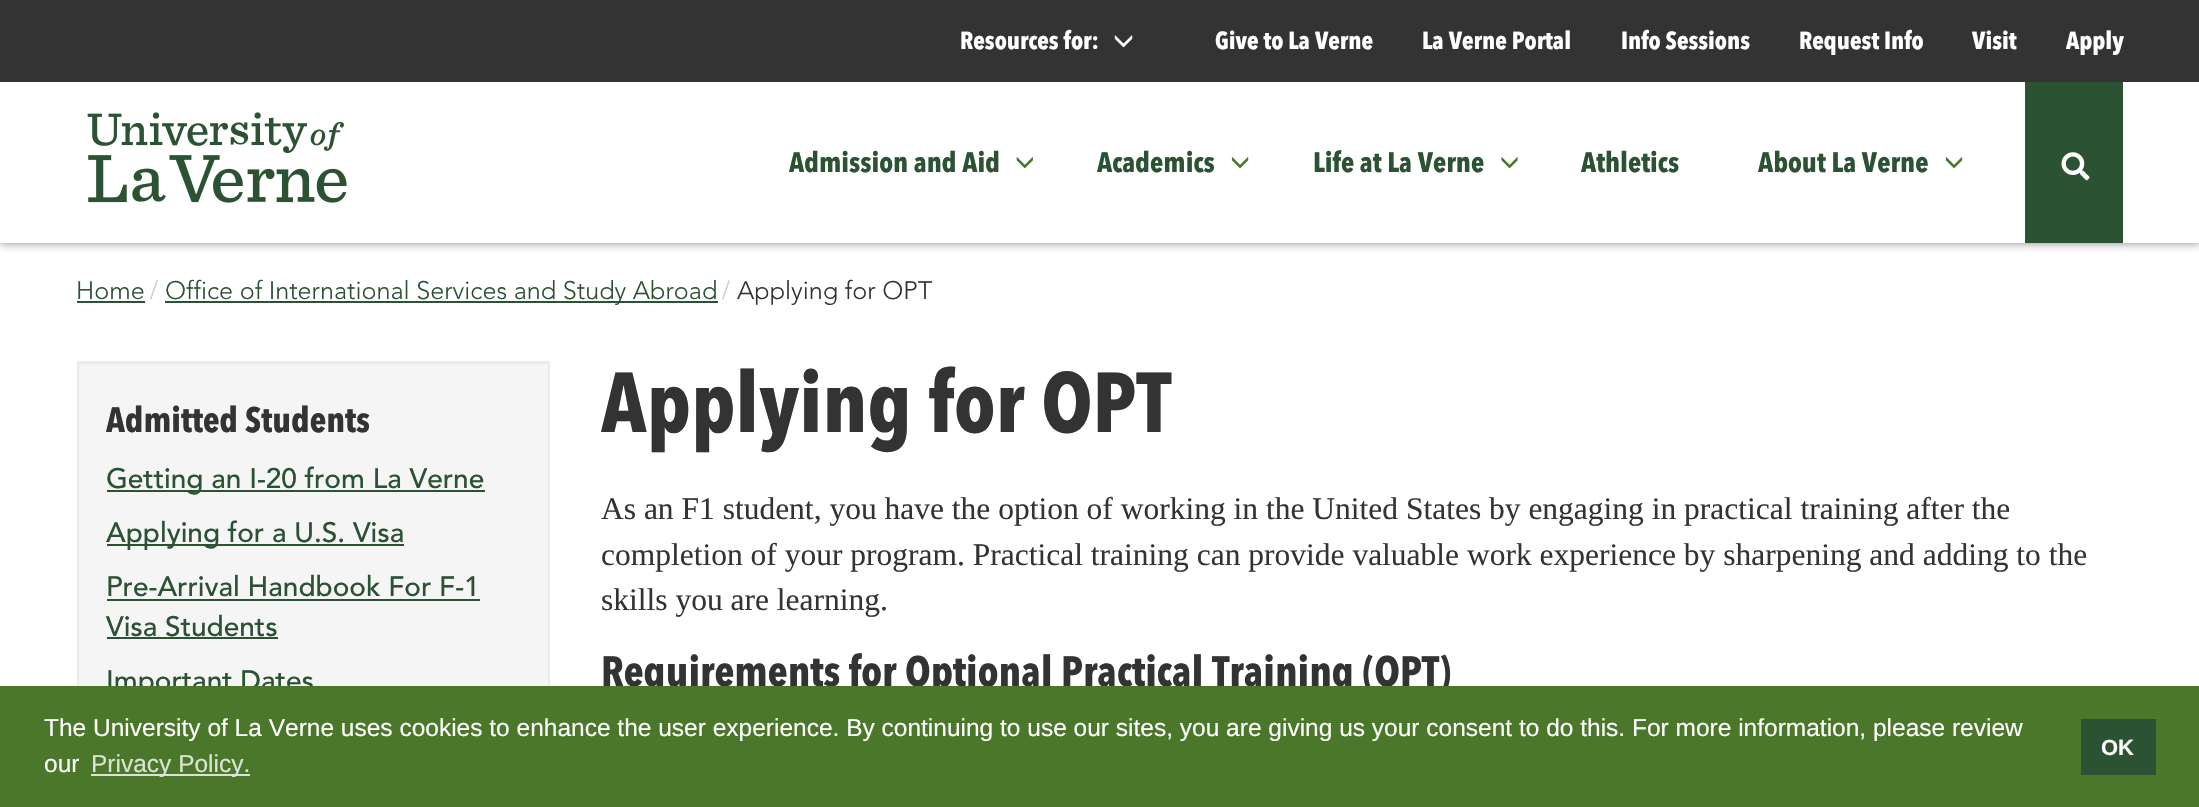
void draw(SkCanvas* canvas) {
	SkPaint paint;
	paint.setAntiAlias(true);
	canvas->clear(0xffffffff);
	canvas->save();
	canvas->clipRect(SkRect::MakeXYWH(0, 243, 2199, 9));
	paint.setColor(0xff868686);
	paint.setMaskFilter(SkMaskFilter::MakeBlur(kNormal_SkBlurStyle, 4.5));
	canvas->drawRect(SkRect::MakeXYWH(0, 0, 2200, 243), paint);
	paint.setMaskFilter(nullptr);
	canvas->restore();
	paint.setColor(0xff333333);
	canvas->drawRect(SkRect::MakeXYWH(0, 0, 2199, 82), paint);
	SkFont f1(fontMgr->matchFamilyStyle("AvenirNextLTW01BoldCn", SkFontStyle::Bold()), 24.5);
	f1.setSubpixel(true);
	paint.setColor(0xffffffff);
	canvas->drawString("Resources for:", 960, 49, f1, paint);
	canvas->drawImageRect(SkImages::DeferredFromEncodedData(SkData::MakeFromFileName("img1.png")), SkRect::MakeXYWH(1114, 35, 19, 13), SkSamplingOptions());
	canvas->drawString("Give to La Verne", 1215, 49, f1, paint);
	canvas->drawString("La Verne Portal", 1422, 49, f1, paint);
	canvas->drawString("Info Sessions", 1621, 49, f1, paint);
	canvas->drawString("Request Info", 1799, 49, f1, paint);
	canvas->drawString("Visit", 1972, 49, f1, paint);
	canvas->drawString("Apply", 2066, 49, f1, paint);
	canvas->drawImageRect(SkImages::DeferredFromEncodedData(SkData::MakeFromFileName("img2.png")), SkRect::MakeXYWH(87, 112, 260, 91), SkSamplingOptions());
	SkFont f2(fontMgr->matchFamilyStyle("AvenirNextLTW01BoldCn", SkFontStyle::Bold()), 28);
	f2.setSubpixel(true);
	paint.setColor(0xff2c5234);
	canvas->drawString("Admission and Aid", 789, 172, f2, paint);
	canvas->drawImageRect(SkImages::DeferredFromEncodedData(SkData::MakeFromFileName("img3.png")), SkRect::MakeXYWH(1016, 157, 17, 12), SkSamplingOptions());
	canvas->drawString("Academics", 1097, 172, f2, paint);
	canvas->drawImageRect(SkImages::DeferredFromEncodedData(SkData::MakeFromFileName("img4.png")), SkRect::MakeXYWH(1231, 157, 18, 12), SkSamplingOptions());
	canvas->drawString("Life at La Verne", 1313, 172, f2, paint);
	canvas->drawImageRect(SkImages::DeferredFromEncodedData(SkData::MakeFromFileName("img5.png")), SkRect::MakeXYWH(1501, 157, 17, 12), SkSamplingOptions());
	canvas->drawString("Athletics", 1581, 172, f2, paint);
	canvas->drawString("About La Verne", 1758, 172, f2, paint);
	canvas->drawImageRect(SkImages::DeferredFromEncodedData(SkData::MakeFromFileName("img4.png")), SkRect::MakeXYWH(1945, 157, 18, 12), SkSamplingOptions());
	canvas->drawRect(SkRect::MakeXYWH(2025, 82, 98, 161), paint);
	canvas->drawImageRect(SkImages::DeferredFromEncodedData(SkData::MakeFromFileName("img6.png")), SkRect::MakeXYWH(2061, 152, 29, 29), SkSamplingOptions());
	SkFont f3(fontMgr->matchFamilyStyle("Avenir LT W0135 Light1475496", SkFontStyle(300, SkFontStyle::kNormal_Width, SkFontStyle::kUpright_Slant)), 25.2);
	f3.setSubpixel(true);
	canvas->drawString("Home", 76, 299, f3, paint);
	canvas->drawRect(SkRect::MakeXYWH(77, 301, 68, 2), paint);
	SkFont f4(fontMgr->matchFamilyStyle("Liberation Serif", SkFontStyle::Normal()), 28);
	f4.setSubpixel(true);
	paint.setColor(0xffcccccc);
	canvas->drawString("/", 150, 299, f4, paint);
	paint.setColor(0xff2c5234);
	canvas->drawRect(SkRect::MakeXYWH(165, 301, 553, 2), paint);
	canvas->drawString("Office of International Services and Study Abroad", 165, 299, f3, paint);
	paint.setColor(0xffcccccc);
	canvas->drawString("/", 722, 299, f4, paint);
	paint.setColor(0xff333333);
	canvas->drawString("Applying for OPT", 737, 299, f3, paint);
	paint.setColor(0xfff5f5f5);
	canvas->drawRect(SkRect::MakeXYWH(79, 364, 469, 322), paint);
	paint.setColor(0xffe9e9e9);
	canvas->drawRect(SkRect::MakeXYWH(79, 363, 469, 1), paint);
	paint.setStroke(true);
	paint.setStrokeWidth(2);
	paint.setColor(0xffebebeb);
	canvas->drawRect(SkRect::MakeXYWH(78, 362, 471, 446), paint);
	SkFont f5(fontMgr->matchFamilyStyle("AvenirNextLTW01BoldCn", SkFontStyle::Bold()), 35);
	f5.setSubpixel(true);
	paint.setStroke(false);
	paint.setColor(0xff333333);
	canvas->drawString("Admitted Students", 106, 432, f5, paint);
	paint.setColor(0xff2c5234);
	canvas->drawRect(SkRect::MakeXYWH(107, 490, 378, 2), paint);
	SkFont f6(fontMgr->matchFamilyStyle("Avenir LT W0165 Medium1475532", SkFontStyle(500, SkFontStyle::kNormal_Width, SkFontStyle::kUpright_Slant)), 28);
	f6.setSubpixel(true);
	canvas->drawString("Getting an I-20 from La Verne", 106, 488, f6, paint);
	canvas->drawRect(SkRect::MakeXYWH(107, 544, 297, 2), paint);
	canvas->drawString("Applying for a U.S. Visa", 106, 542, f6, paint);
	canvas->drawString("Pre-Arrival Handbook For F-1", 106, 596, f6, paint);
	canvas->drawRect(SkRect::MakeXYWH(107, 599, 373, 2), paint);
	canvas->drawString("Visa Students", 106, 636, f6, paint);
	canvas->drawRect(SkRect::MakeXYWH(107, 637, 171, 2), paint);
	canvas->drawString("Important Dates", 106, 690, f6, paint);
	SkFont f7(fontMgr->matchFamilyStyle("AvenirNextLTW01BoldCn", SkFontStyle::Bold()), 84);
	f7.setSubpixel(true);
	paint.setColor(0xff333333);
	canvas->drawString("Applying for OPT", 601, 432, f7, paint);
	SkFont f8(fontMgr->matchFamilyStyle("Liberation Serif", SkFontStyle::Normal()), 31.5);
	f8.setSubpixel(true);
	canvas->drawString("As an F1 student, you have the option of working in the United States by engaging in practical training after the", 601, 519, f8, paint);
	canvas->drawString("completion of your program. Practical training can provide valuable work experience by sharpening and adding to the", 601, 565, f8, paint);
	canvas->drawString("skills you are learning.", 601, 610, f8, paint);
	SkFont f9(fontMgr->matchFamilyStyle("AvenirNextLTW01BoldCn", SkFontStyle::Bold()), 42);
	f9.setSubpixel(true);
	canvas->drawString("Requirements for Optional Practical Training (OPT)", 601, 686, f9, paint);
	paint.setColor(0xff4a7729);
	canvas->drawRect(SkRect::MakeXYWH(0, 686, 2199, 121), paint);
	SkFont f10(fontMgr->matchFamilyStyle("Liberation Sans", SkFontStyle::Normal()), 24.5);
	f10.setSubpixel(true);
	paint.setColor(0xffffffff);
	canvas->drawString("The University of La Verne uses cookies to enhance the user experience. By continuing to use our sites, you are giving us your consent to do this. For more information, please review", 44, 736, f10, paint);
	canvas->drawString("our", 44, 772, f10, paint);
	paint.setColor(0xffdbe4d4);
	canvas->drawRect(SkRect::MakeXYWH(91, 774, 159, 2), paint);
	canvas->drawString("Privacy Policy.", 91, 772, f10, paint);
	paint.setColor(0xff2c5234);
	canvas->drawRect(SkRect::MakeXYWH(2081, 719, 75, 56), paint);
	SkFont f11(fontMgr->matchFamilyStyle("Liberation Sans", SkFontStyle::Bold()), 22);
	f11.setSubpixel(true);
	paint.setColor(0xffffffff);
	canvas->drawString("OK", 2101, 755, f11, paint);
}
